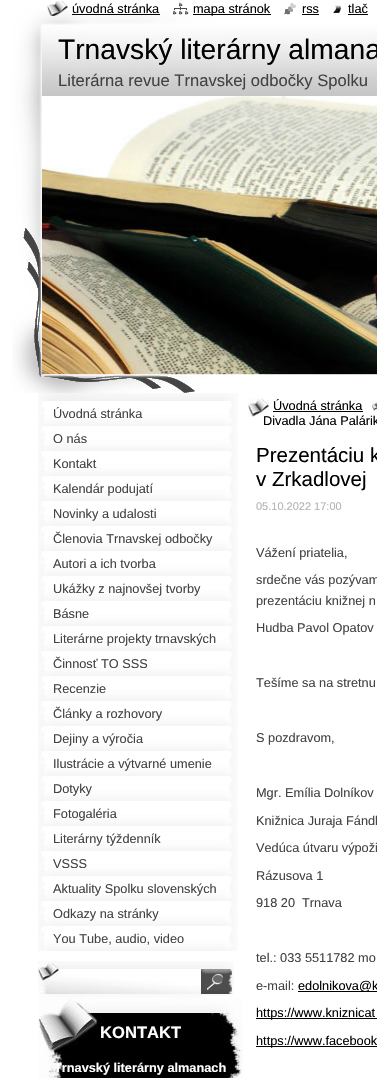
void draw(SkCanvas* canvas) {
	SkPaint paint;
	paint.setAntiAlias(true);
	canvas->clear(0xffffffff);
	canvas->drawImageRect(SkImages::DeferredFromEncodedData(SkData::MakeFromFileName("img5.png")), SkRect::MakeXYWH(12, 10, 365, 383), SkSamplingOptions());
	canvas->drawImageRect(SkImages::DeferredFromEncodedData(SkData::MakeFromFileName("img1.png")), SkRect::MakeXYWH(47, 1, 21, 15), SkSamplingOptions());
	SkFont f1(fontMgr->matchFamilyStyle("Liberation Sans", SkFontStyle::Normal()), 12.75);
	f1.setSubpixel(true);
	paint.setColor(0xff000000);
	canvas->drawString("úvodná stránka", 72, 13, f1, paint);
	canvas->drawRect(SkRect::MakeXYWH(72, 14, 88, 1), paint);
	canvas->drawImageRect(SkImages::DeferredFromEncodedData(SkData::MakeFromFileName("img2.png")), SkRect::MakeXYWH(173, 2, 16, 13), SkSamplingOptions());
	canvas->drawRect(SkRect::MakeXYWH(193, 14, 78, 1), paint);
	canvas->drawString("mapa stránok", 193, 13, f1, paint);
	canvas->drawImageRect(SkImages::DeferredFromEncodedData(SkData::MakeFromFileName("img3.png")), SkRect::MakeXYWH(284, 3, 12, 12), SkSamplingOptions());
	canvas->drawString("rss", 302, 13, f1, paint);
	canvas->drawRect(SkRect::MakeXYWH(302, 14, 17, 1), paint);
	canvas->drawImageRect(SkImages::DeferredFromEncodedData(SkData::MakeFromFileName("img4.png")), SkRect::MakeXYWH(333, 5, 8, 8), SkSamplingOptions());
	canvas->drawString("tlač", 348, 13, f1, paint);
	canvas->drawRect(SkRect::MakeXYWH(348, 14, 20, 1), paint);
	SkFont f2(fontMgr->matchFamilyStyle("Liberation Sans", SkFontStyle::Normal()), 28.2);
	f2.setSubpixel(true);
	canvas->drawString("Trnavský literárny almana", 58, 59, f2, paint);
	SkFont f3(fontMgr->matchFamilyStyle("Liberation Sans", SkFontStyle::Normal()), 16.6);
	f3.setSubpixel(true);
	paint.setColor(0xff454143);
	canvas->drawString("Literárna revue Trnavskej odbočky Spolku", 58, 86, f3, paint);
	canvas->drawImageRect(SkImages::DeferredFromEncodedData(SkData::MakeFromFileName("img6.png")), SkRect::MakeXYWH(42, 96, 335, 279), SkSamplingOptions());
	canvas->drawImageRect(SkImages::DeferredFromEncodedData(SkData::MakeFromFileName("img7.png")), SkRect::MakeXYWH(38, 393, 200, 8), SkSamplingOptions());
	canvas->drawImageRect(SkImages::DeferredFromEncodedData(SkData::MakeFromFileName("img8.png")), SkRect::MakeXYWH(38, 401, 200, 25), SkSamplingOptions());
	canvas->drawString("Úvodná stránka", 53, 418, f1, paint);
	canvas->drawImageRect(SkImages::DeferredFromEncodedData(SkData::MakeFromFileName("img8.png")), SkRect::MakeXYWH(38, 426, 200, 25), SkSamplingOptions());
	canvas->drawString("O nás", 53, 443, f1, paint);
	canvas->drawImageRect(SkImages::DeferredFromEncodedData(SkData::MakeFromFileName("img8.png")), SkRect::MakeXYWH(38, 451, 200, 25), SkSamplingOptions());
	canvas->drawString("Kontakt", 53, 468, f1, paint);
	canvas->drawImageRect(SkImages::DeferredFromEncodedData(SkData::MakeFromFileName("img8.png")), SkRect::MakeXYWH(38, 476, 200, 25), SkSamplingOptions());
	canvas->drawString("Kalendár podujatí", 53, 493, f1, paint);
	canvas->drawImageRect(SkImages::DeferredFromEncodedData(SkData::MakeFromFileName("img8.png")), SkRect::MakeXYWH(38, 501, 200, 25), SkSamplingOptions());
	canvas->drawString("Novinky a udalosti", 53, 518, f1, paint);
	canvas->drawImageRect(SkImages::DeferredFromEncodedData(SkData::MakeFromFileName("img8.png")), SkRect::MakeXYWH(38, 526, 200, 25), SkSamplingOptions());
	canvas->drawString("Členovia Trnavskej odbočky", 53, 543, f1, paint);
	canvas->drawImageRect(SkImages::DeferredFromEncodedData(SkData::MakeFromFileName("img8.png")), SkRect::MakeXYWH(38, 551, 200, 25), SkSamplingOptions());
	canvas->drawString("Autori a ich tvorba", 53, 568, f1, paint);
	canvas->drawImageRect(SkImages::DeferredFromEncodedData(SkData::MakeFromFileName("img8.png")), SkRect::MakeXYWH(38, 576, 200, 25), SkSamplingOptions());
	canvas->drawString("Ukážky z najnovšej tvorby", 53, 593, f1, paint);
	canvas->drawImageRect(SkImages::DeferredFromEncodedData(SkData::MakeFromFileName("img8.png")), SkRect::MakeXYWH(38, 601, 200, 25), SkSamplingOptions());
	canvas->drawString("Básne", 53, 618, f1, paint);
	canvas->drawImageRect(SkImages::DeferredFromEncodedData(SkData::MakeFromFileName("img8.png")), SkRect::MakeXYWH(38, 626, 200, 25), SkSamplingOptions());
	canvas->drawString("Literárne projekty trnavských", 53, 643, f1, paint);
	canvas->drawImageRect(SkImages::DeferredFromEncodedData(SkData::MakeFromFileName("img8.png")), SkRect::MakeXYWH(38, 651, 200, 25), SkSamplingOptions());
	canvas->drawString("Činnosť TO SSS", 53, 668, f1, paint);
	canvas->drawImageRect(SkImages::DeferredFromEncodedData(SkData::MakeFromFileName("img8.png")), SkRect::MakeXYWH(38, 676, 200, 25), SkSamplingOptions());
	canvas->drawString("Recenzie", 53, 693, f1, paint);
	canvas->drawImageRect(SkImages::DeferredFromEncodedData(SkData::MakeFromFileName("img8.png")), SkRect::MakeXYWH(38, 701, 200, 25), SkSamplingOptions());
	canvas->drawString("Články a rozhovory", 53, 718, f1, paint);
	canvas->drawImageRect(SkImages::DeferredFromEncodedData(SkData::MakeFromFileName("img8.png")), SkRect::MakeXYWH(38, 726, 200, 25), SkSamplingOptions());
	canvas->drawString("Dejiny a výročia", 53, 743, f1, paint);
	canvas->drawImageRect(SkImages::DeferredFromEncodedData(SkData::MakeFromFileName("img8.png")), SkRect::MakeXYWH(38, 751, 200, 25), SkSamplingOptions());
	canvas->drawString("Ilustrácie a výtvarné umenie", 53, 768, f1, paint);
	canvas->drawImageRect(SkImages::DeferredFromEncodedData(SkData::MakeFromFileName("img8.png")), SkRect::MakeXYWH(38, 776, 200, 25), SkSamplingOptions());
	canvas->drawString("Dotyky", 53, 793, f1, paint);
	canvas->drawImageRect(SkImages::DeferredFromEncodedData(SkData::MakeFromFileName("img8.png")), SkRect::MakeXYWH(38, 801, 200, 25), SkSamplingOptions());
	canvas->drawString("Fotogaléria", 53, 818, f1, paint);
	canvas->drawImageRect(SkImages::DeferredFromEncodedData(SkData::MakeFromFileName("img8.png")), SkRect::MakeXYWH(38, 826, 200, 25), SkSamplingOptions());
	canvas->drawString("Literárny týždenník", 53, 843, f1, paint);
	canvas->drawImageRect(SkImages::DeferredFromEncodedData(SkData::MakeFromFileName("img8.png")), SkRect::MakeXYWH(38, 851, 200, 25), SkSamplingOptions());
	canvas->drawString("VSSS", 53, 868, f1, paint);
	canvas->drawImageRect(SkImages::DeferredFromEncodedData(SkData::MakeFromFileName("img8.png")), SkRect::MakeXYWH(38, 876, 200, 25), SkSamplingOptions());
	canvas->drawString("Aktuality Spolku slovenských", 53, 893, f1, paint);
	canvas->drawImageRect(SkImages::DeferredFromEncodedData(SkData::MakeFromFileName("img8.png")), SkRect::MakeXYWH(38, 901, 200, 25), SkSamplingOptions());
	canvas->drawString("Odkazy na stránky", 53, 918, f1, paint);
	canvas->drawImageRect(SkImages::DeferredFromEncodedData(SkData::MakeFromFileName("img8.png")), SkRect::MakeXYWH(38, 926, 200, 25), SkSamplingOptions());
	canvas->drawString("You Tube, audio, video", 53, 943, f1, paint);
	canvas->drawImageRect(SkImages::DeferredFromEncodedData(SkData::MakeFromFileName("img9.png")), SkRect::MakeXYWH(38, 961, 163, 37), SkSamplingOptions());
	canvas->drawImageRect(SkImages::DeferredFromEncodedData(SkData::MakeFromFileName("img10.png")), SkRect::MakeXYWH(201, 961, 33, 35), SkSamplingOptions());
	canvas->drawImageRect(SkImages::DeferredFromEncodedData(SkData::MakeFromFileName("img11.png")), SkRect::MakeXYWH(38, 998, 205, 80), SkSamplingOptions());
	SkFont f4(fontMgr->matchFamilyStyle("Liberation Sans", SkFontStyle::Bold()), 16.6);
	f4.setSubpixel(true);
	paint.setColor(0xffffffff);
	canvas->drawString("KONTAKT", 100, 1038, f4, paint);
	SkFont f5(fontMgr->matchFamilyStyle("Liberation Sans", SkFontStyle::Bold()), 12.75);
	f5.setSubpixel(true);
	canvas->drawString("Trnavský literárny almanach", 54, 1072, f5, paint);
	canvas->drawImageRect(SkImages::DeferredFromEncodedData(SkData::MakeFromFileName("img12.png")), SkRect::MakeXYWH(248, 398, 21, 19), SkSamplingOptions());
	paint.setColor(0xff000000);
	canvas->drawString("Úvodná stránka", 273, 410, f1, paint);
	canvas->drawRect(SkRect::MakeXYWH(273, 411, 90, 1), paint);
	canvas->drawImageRect(SkImages::DeferredFromEncodedData(SkData::MakeFromFileName("img13.png")), SkRect::MakeXYWH(372, 401, 5, 10), SkSamplingOptions());
	canvas->drawString("Divadla Jána Palárik", 263, 425, f1, paint);
	SkFont f6(fontMgr->matchFamilyStyle("Liberation Sans", SkFontStyle::Normal()), 20.5);
	f6.setSubpixel(true);
	canvas->drawString("Prezentáciu k", 256, 462, f6, paint);
	canvas->drawString("v Zrkadlovej", 256, 486, f6, paint);
	SkFont f7(fontMgr->matchFamilyStyle("Liberation Sans", SkFontStyle::Normal()), 11);
	f7.setSubpixel(true);
	paint.setColor(0xffb3b3b3);
	canvas->drawString("05.10.2022 17:00", 256, 510, f7, paint);
	paint.setColor(0xff454143);
	canvas->drawString("Vážení priatelia,", 256, 557, f1, paint);
	canvas->drawString("srdečne vás pozývam", 256, 584, f1, paint);
	canvas->drawString("prezentáciu knižnej n", 256, 605, f1, paint);
	canvas->drawString("Hudba Pavol Opatov", 256, 632, f1, paint);
	canvas->drawString("Tešíme sa na stretnu", 256, 687, f1, paint);
	canvas->drawString("S pozdravom,", 256, 742, f1, paint);
	canvas->drawString("Mgr. Emília Dolníkov", 256, 797, f1, paint);
	canvas->drawString("Knižnica Juraja Fándl", 256, 825, f1, paint);
	canvas->drawString("Vedúca útvaru výpoži", 256, 852, f1, paint);
	canvas->drawString("Rázusova 1", 256, 880, f1, paint);
	canvas->drawString("918 20  Trnava", 256, 907, f1, paint);
	canvas->drawString("tel.: 033 5511782 mo", 256, 962, f1, paint);
	canvas->drawString("e-mail:", 256, 990, f1, paint);
	paint.setColor(0xff000000);
	canvas->drawRect(SkRect::MakeXYWH(298, 991, 79, 1), paint);
	canvas->drawString("edolnikova@k", 298, 990, f1, paint);
	canvas->drawRect(SkRect::MakeXYWH(256, 1018, 121, 1), paint);
	canvas->drawString("https://www.kniznicat", 256, 1017, f1, paint);
	canvas->drawRect(SkRect::MakeXYWH(256, 1046, 121, 1), paint);
	canvas->drawString("https://www.facebook", 256, 1045, f1, paint);
}
